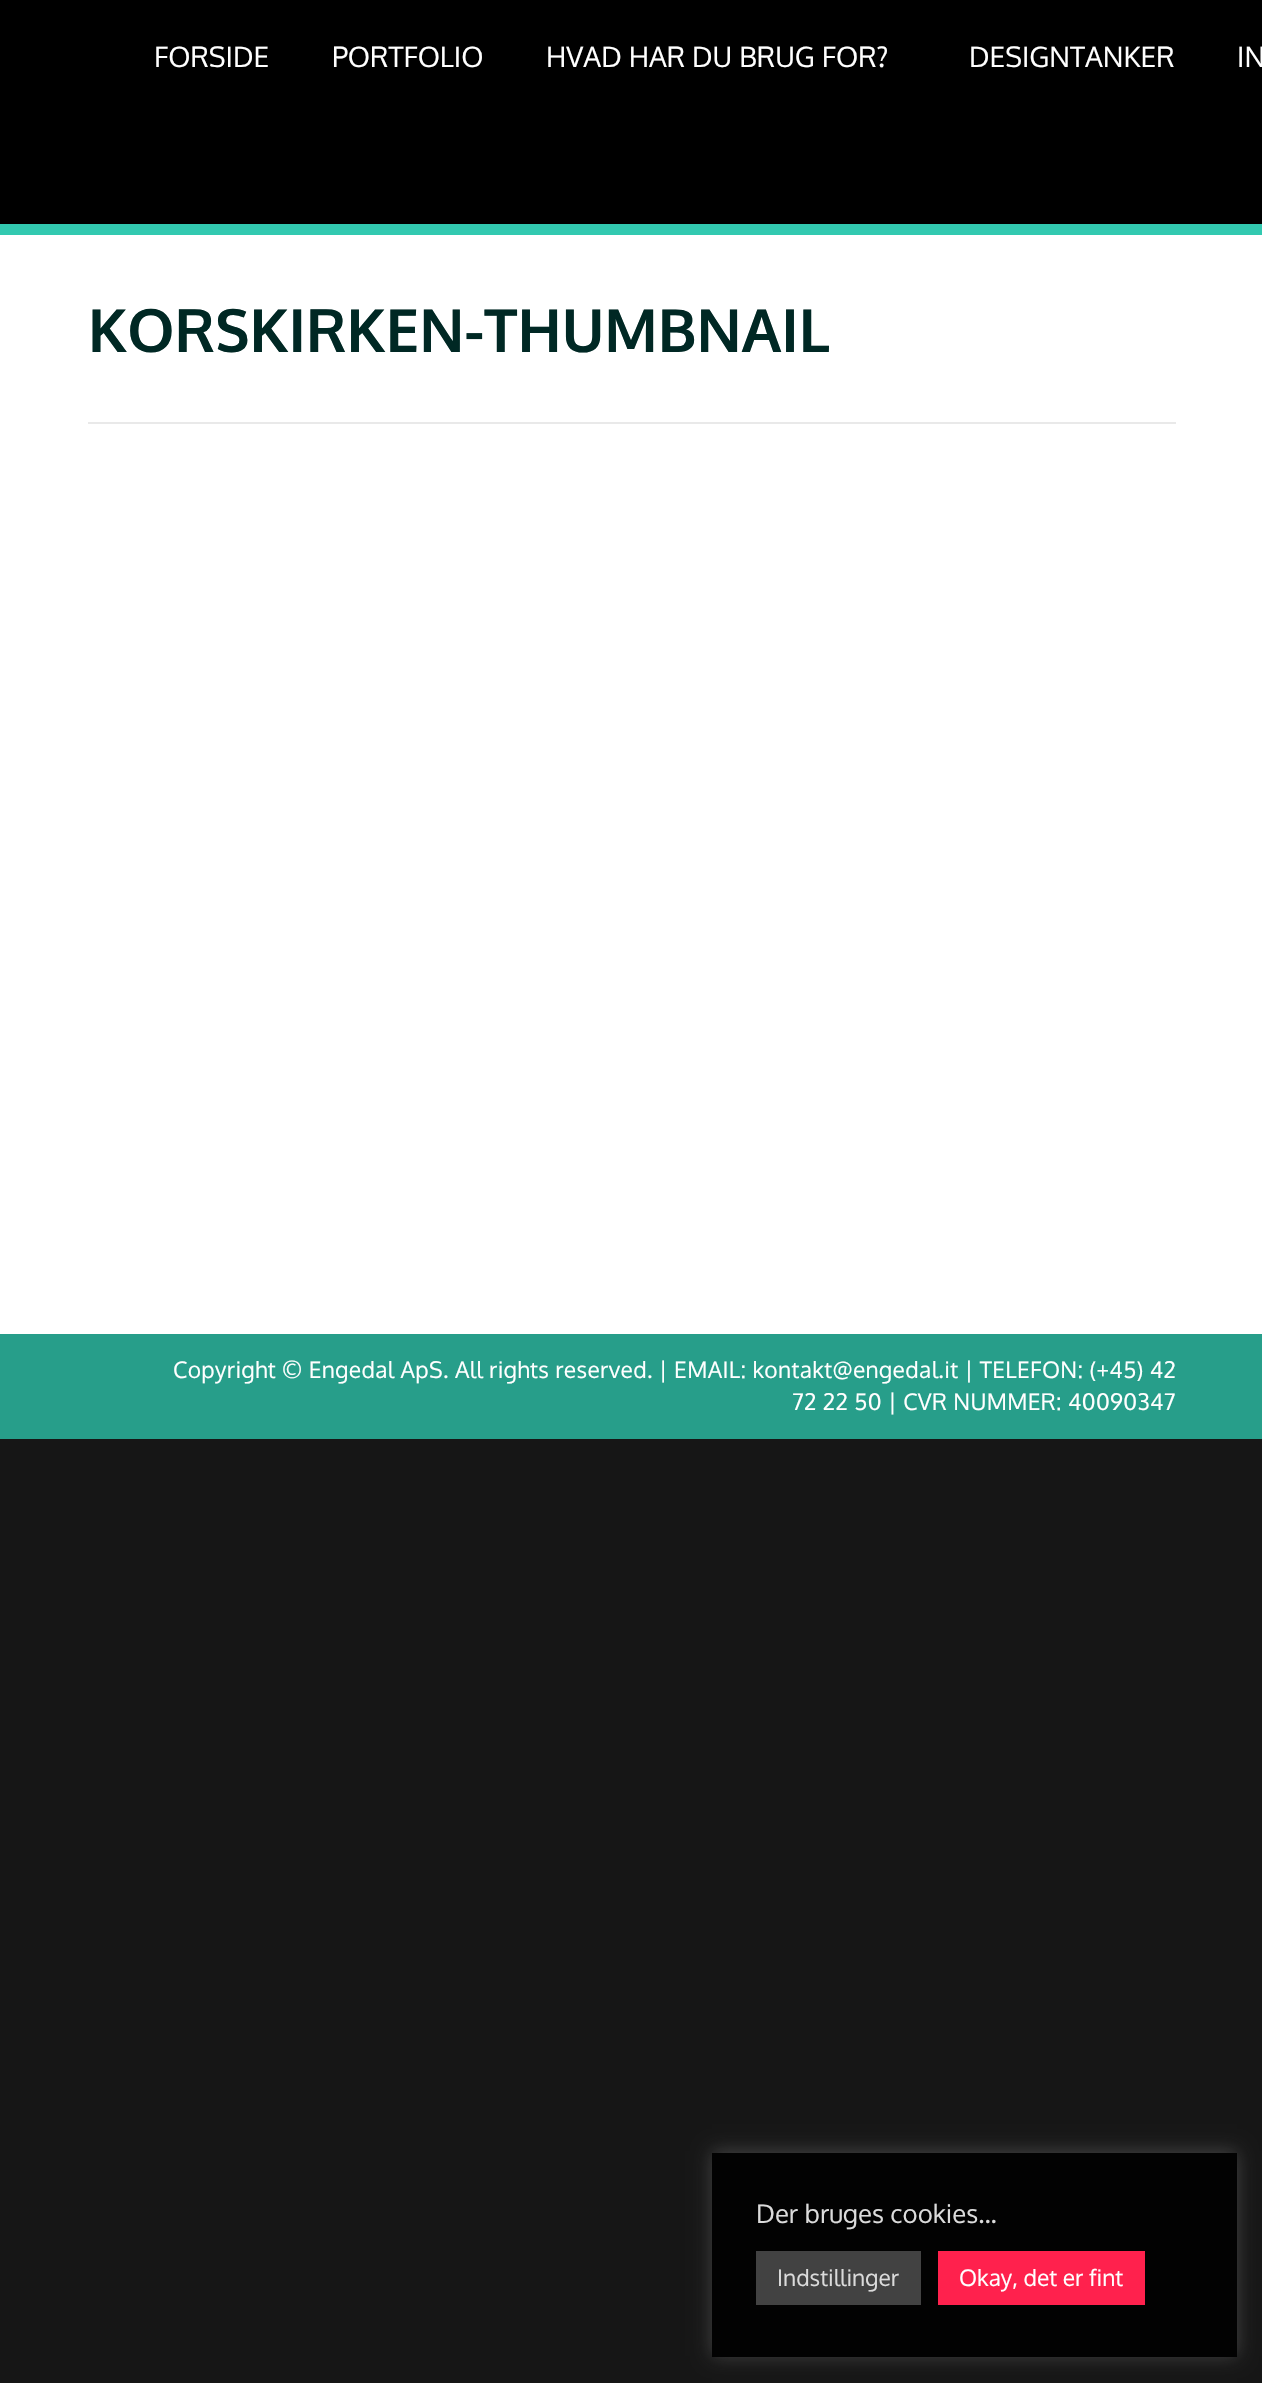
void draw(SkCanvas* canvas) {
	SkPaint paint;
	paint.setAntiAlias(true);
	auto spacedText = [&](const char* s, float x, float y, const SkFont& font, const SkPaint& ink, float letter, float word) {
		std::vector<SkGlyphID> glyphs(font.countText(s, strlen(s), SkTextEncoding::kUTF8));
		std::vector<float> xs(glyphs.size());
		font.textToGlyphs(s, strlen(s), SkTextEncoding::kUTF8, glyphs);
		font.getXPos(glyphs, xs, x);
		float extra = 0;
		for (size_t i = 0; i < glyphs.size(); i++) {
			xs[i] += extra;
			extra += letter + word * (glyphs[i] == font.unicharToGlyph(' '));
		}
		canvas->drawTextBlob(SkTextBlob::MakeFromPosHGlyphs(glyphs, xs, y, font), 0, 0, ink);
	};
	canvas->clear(0xff161616);
	paint.setColor(0xffffffff);
	canvas->drawRect(SkRect::MakeXYWH(0, 235, 1262, 1099), paint);
	paint.setColor(0xff000000);
	canvas->drawRect(SkRect::MakeXYWH(0, 0, 1262, 224), paint);
	paint.setColor(0xff32c9b0);
	canvas->drawRect(SkRect::MakeXYWH(0, 224, 1262, 11), paint);
	SkFont f1(fontMgr->matchFamilyStyle("Oxygen", SkFontStyle::Normal()), 28);
	f1.setSubpixel(true);
	paint.setColor(0xffffffff);
	canvas->drawString("FORSIDE", 154, 67, f1, paint);
	canvas->drawString("PORTFOLIO", 332, 67, f1, paint);
	canvas->drawString("HVAD HAR DU BRUG FOR?", 546, 67, f1, paint);
	canvas->drawString("DESIGNTANKER", 969, 67, f1, paint);
	canvas->drawString("IN", 1237, 67, f1, paint);
	SkFont f2(fontMgr->matchFamilyStyle("Oxygen", SkFontStyle::Bold()), 59.5);
	f2.setSubpixel(true);
	paint.setColor(0xff002824);
	canvas->drawString("KORSKIRKEN-THUMBNAIL", 88, 352, f2, paint);
	paint.setColor(0xffe9e9e9);
	canvas->drawRect(SkRect::MakeXYWH(88, 422, 1088, 2), paint);
	paint.setColor(0xff279e8a);
	canvas->drawRect(SkRect::MakeXYWH(0, 1334, 1262, 105), paint);
	SkFont f3(fontMgr->matchFamilyStyle("Oxygen", SkFontStyle::Normal()), 22.75);
	f3.setSubpixel(true);
	paint.setColor(0xffffffff);
	spacedText("Copyright © Engedal ApS. All rights reserved. | EMAIL: kontakt@engedal.it | TELEFON: (+45) 42", 173, 1378, f3, paint, 0.35, 0);
	spacedText("72 22 50 | CVR NUMMER: 40090347", 792, 1410, f3, paint, 0.35, 0);
	paint.setColor(0x4dacabab);
	paint.setMaskFilter(SkMaskFilter::MakeBlur(kNormal_SkBlurStyle, 9));
	canvas->drawRect(SkRect::MakeXYWH(712, 2151, 525, 205), paint);
	paint.setMaskFilter(nullptr);
	paint.setColor(0xff020202);
	canvas->drawRect(SkRect::MakeXYWH(712, 2153, 525, 204), paint);
	SkFont f4(fontMgr->matchFamilyStyle("Oxygen", SkFontStyle::Normal()), 25.75);
	f4.setSubpixel(true);
	paint.setColor(0xffdbdbdb);
	canvas->drawString("Der bruges cookies...", 756, 2223, f4, paint);
	paint.setColor(0xff424242);
	canvas->drawRect(SkRect::MakeXYWH(756, 2251, 165, 54), paint);
	paint.setColor(0xffdbdbdb);
	canvas->drawString("Indstillinger", 777, 2286, f3, paint);
	paint.setColor(0xffff214d);
	canvas->drawRect(SkRect::MakeXYWH(938, 2251, 207, 54), paint);
	paint.setColor(0xffffffff);
	canvas->drawString("Okay, det er fint", 959, 2286, f3, paint);
}
